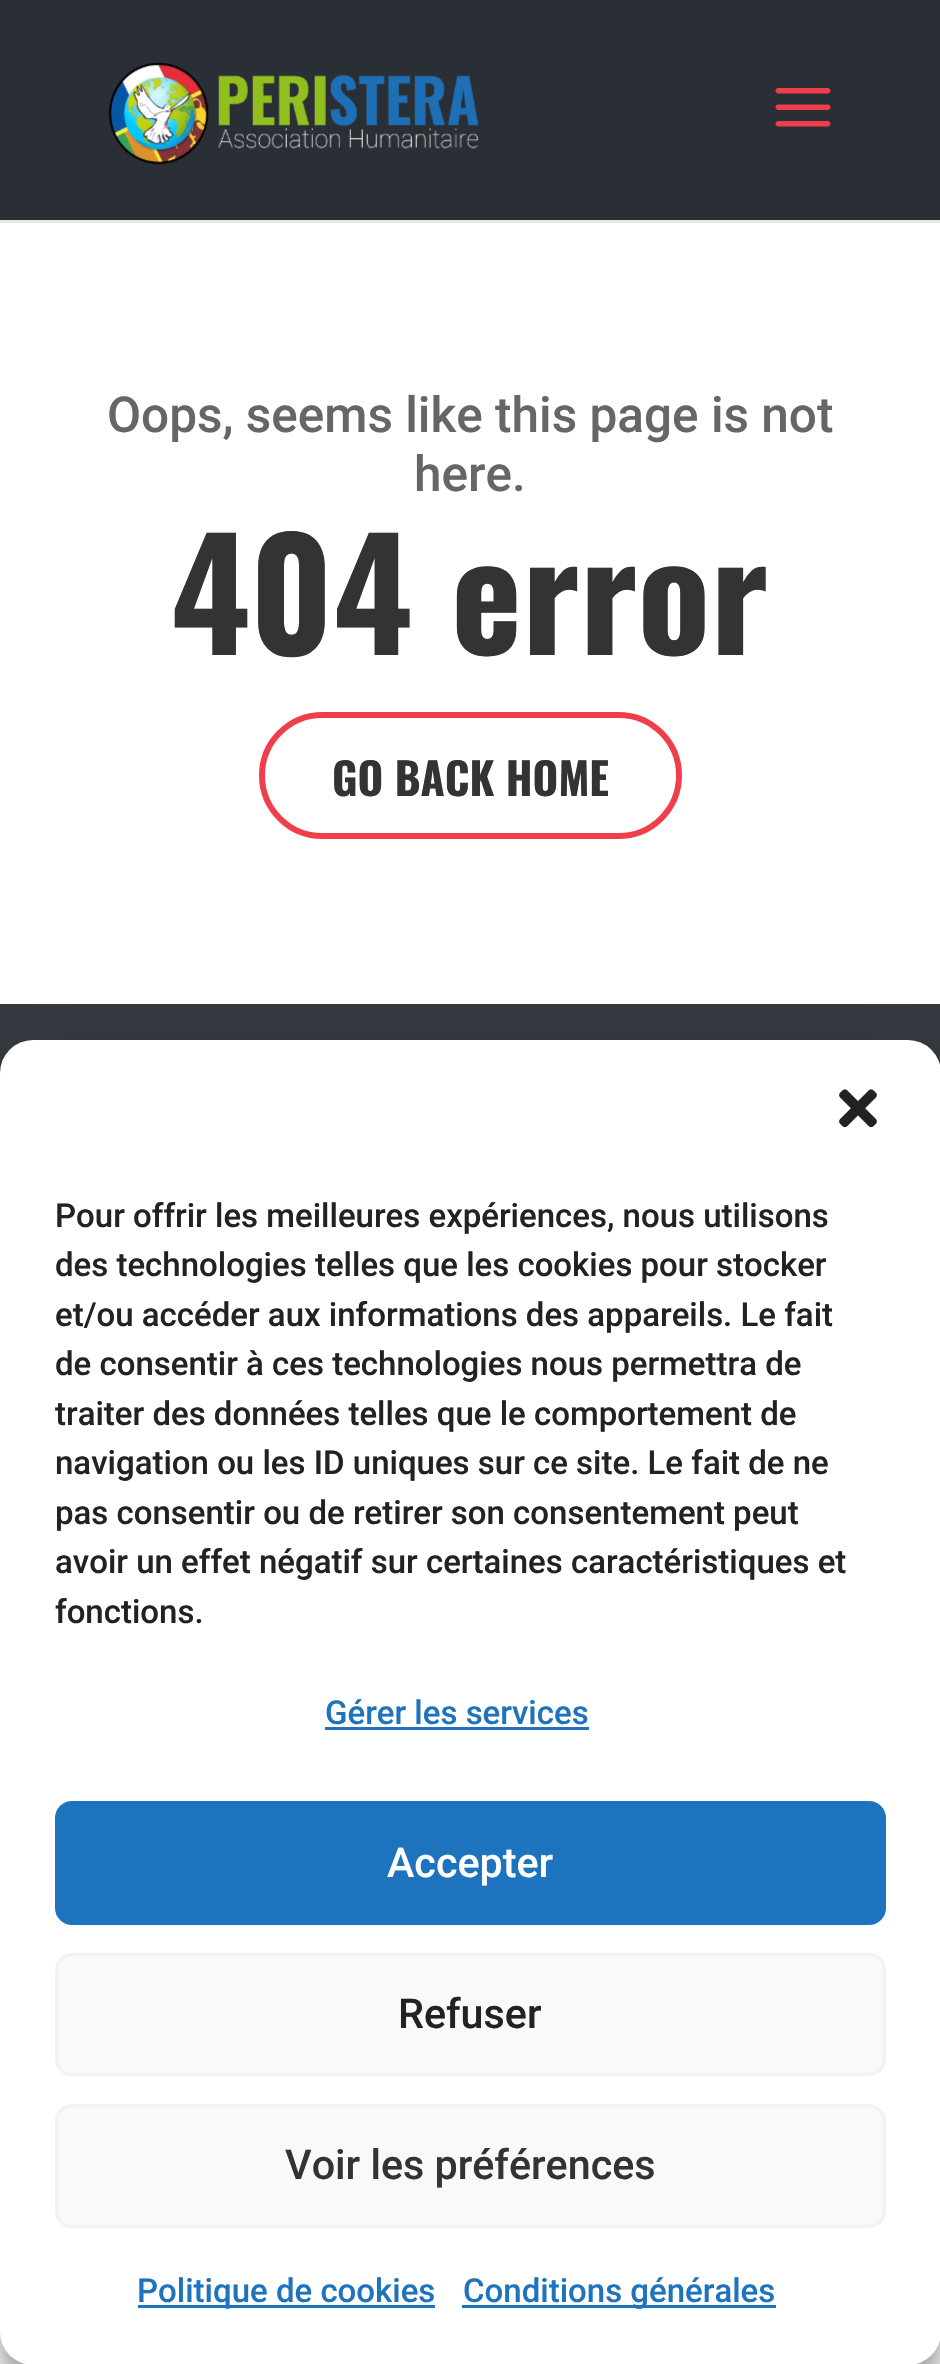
void draw(SkCanvas* canvas) {
	SkPaint paint;
	paint.setAntiAlias(true);
	auto svgPath = [&](const char* data, bool evenOdd = false) {
		SkPath result = *SkParsePath::FromSVGString(data);
		if (evenOdd) result.setFillType(SkPathFillType::kEvenOdd);
		return result;
	};
	canvas->clear(0xffffffff);
	paint.setColor(0xffe6e6e6);
	canvas->drawPath(svgPath("M0 220V223H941V3H940V220Z"), paint);
	paint.setColor(0xff2a2f36);
	canvas->drawRect(SkRect::MakeXYWH(0, 0, 940, 220), paint);
	canvas->drawImageRect(SkImages::DeferredFromEncodedData(SkData::MakeFromFileName("img1.png")), SkRect::MakeXYWH(108, 62, 371, 103), SkSamplingOptions());
	canvas->drawImageRect(SkImages::DeferredFromEncodedData(SkData::MakeFromFileName("img2.png")), SkRect::MakeXYWH(775, 88, 56, 39), SkSamplingOptions());
	SkFont f1(fontMgr->matchFamilyStyle("Roboto", SkFontStyle(500, SkFontStyle::kNormal_Width, SkFontStyle::kUpright_Slant)), 49.5);
	f1.setSubpixel(true);
	paint.setColor(0xff666666);
	canvas->drawString("Oops, seems like this page is not", 107, 432, f1, paint);
	canvas->drawString("here.", 414, 491, f1, paint);
	SkFont f2(fontMgr->matchFamilyStyle("Oswald", SkFontStyle::Bold()), 151);
	f2.setSubpixel(true);
	paint.setColor(0xff333333);
	canvas->drawString("404 error", 171, 655, f2, paint);
	paint.setStroke(true);
	paint.setStrokeWidth(6);
	paint.setColor(0xfff13e4b);
	canvas->drawRoundRect(SkRect::MakeXYWH(262, 715, 417, 121), 60.5, 60.5, paint);
	SkFont f3(fontMgr->matchFamilyStyle("Oswald", SkFontStyle::Bold()), 44);
	f3.setSubpixel(true);
	paint.setStroke(false);
	paint.setColor(0xff333333);
	canvas->drawString("GO BACK HOME", 332, 796, f3, paint);
	paint.setColor(0xff353940);
	canvas->drawRect(SkRect::MakeXYWH(0, 1004, 940, 69), paint);
	paint.setColor(0x3b000000);
	paint.setMaskFilter(SkMaskFilter::MakeBlur(kNormal_SkBlurStyle, 8));
	canvas->drawRoundRect(SkRect::MakeXYWH(0, 1056, 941, 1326), 33, 33, paint);
	paint.setMaskFilter(nullptr);
	paint.setColor(0x30000000);
	paint.setMaskFilter(SkMaskFilter::MakeBlur(kNormal_SkBlurStyle, 27.5));
	canvas->drawRoundRect(SkRect::MakeXYWH(0, 1067, 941, 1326), 33, 33, paint);
	paint.setMaskFilter(nullptr);
	paint.setColor(0xffffffff);
	canvas->drawRoundRect(SkRect::MakeXYWH(0, 1040, 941, 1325), 33, 33, paint);
	canvas->drawImageRect(SkImages::DeferredFromEncodedData(SkData::MakeFromFileName("img3.png")), SkRect::MakeXYWH(839, 1089, 38, 39), SkSamplingOptions());
	SkFont f4(fontMgr->matchFamilyStyle("Roboto", SkFontStyle(500, SkFontStyle::kNormal_Width, SkFontStyle::kUpright_Slant)), 33);
	f4.setSubpixel(true);
	paint.setColor(0xff222222);
	canvas->drawString("Pour offrir les meilleures expériences, nous utilisons", 55, 1227, f4, paint);
	canvas->drawString("des technologies telles que les cookies pour stocker", 55, 1276, f4, paint);
	canvas->drawString("et/ou accéder aux informations des appareils. Le fait", 55, 1326, f4, paint);
	canvas->drawString("de consentir à ces technologies nous permettra de", 55, 1375, f4, paint);
	canvas->drawString("traiter des données telles que le comportement de", 55, 1425, f4, paint);
	canvas->drawString("navigation ou les ID uniques sur ce site. Le fait de ne", 55, 1474, f4, paint);
	canvas->drawString("pas consentir ou de retirer son consentement peut", 55, 1524, f4, paint);
	canvas->drawString("avoir un effet négatif sur certaines caractéristiques et", 55, 1573, f4, paint);
	canvas->drawString("fonctions.", 55, 1623, f4, paint);
	paint.setColor(0xff1e73be);
	canvas->drawString("Gérer les services", 325, 1724, f4, paint);
	canvas->drawRect(SkRect::MakeXYWH(325, 1727, 264, 3), paint);
	canvas->drawRoundRect(SkRect::MakeXYWH(56.5, 1802.5, 828, 121), 15.5, 15.5, paint);
	paint.setStroke(true);
	paint.setStrokeWidth(3);
	canvas->drawRoundRect(SkRect::MakeXYWH(56.5, 1802.5, 828, 121), 15.5, 15.5, paint);
	SkFont f5(fontMgr->matchFamilyStyle("Roboto", SkFontStyle(500, SkFontStyle::kNormal_Width, SkFontStyle::kUpright_Slant)), 41.25);
	f5.setSubpixel(true);
	paint.setStroke(false);
	paint.setColor(0xffffffff);
	canvas->drawString("Accepter", 387, 1877, f5, paint);
	paint.setColor(0xfff9f9f9);
	canvas->drawRoundRect(SkRect::MakeXYWH(56.5, 1954.5, 828, 120), 15.5, 15.5, paint);
	paint.setStroke(true);
	paint.setColor(0xfff2f2f2);
	canvas->drawRoundRect(SkRect::MakeXYWH(56.5, 1954.5, 828, 120), 15.5, 15.5, paint);
	paint.setStroke(false);
	paint.setColor(0xff222222);
	canvas->drawString("Refuser", 398, 2028, f5, paint);
	paint.setColor(0xfff9f9f9);
	canvas->drawRoundRect(SkRect::MakeXYWH(56.5, 2105.5, 828, 121), 15.5, 15.5, paint);
	paint.setStroke(true);
	paint.setColor(0xfff2f2f2);
	canvas->drawRoundRect(SkRect::MakeXYWH(56.5, 2105.5, 828, 121), 15.5, 15.5, paint);
	paint.setStroke(false);
	paint.setColor(0xff333333);
	canvas->drawString("Voir les préférences", 285, 2179, f5, paint);
	paint.setColor(0xff1e73be);
	canvas->drawRect(SkRect::MakeXYWH(138, 2305, 297, 3), paint);
	canvas->drawString("Politique de cookies", 137, 2302, f4, paint);
	canvas->drawRect(SkRect::MakeXYWH(462, 2305, 314, 3), paint);
	canvas->drawString("Conditions générales", 463, 2302, f4, paint);
}
